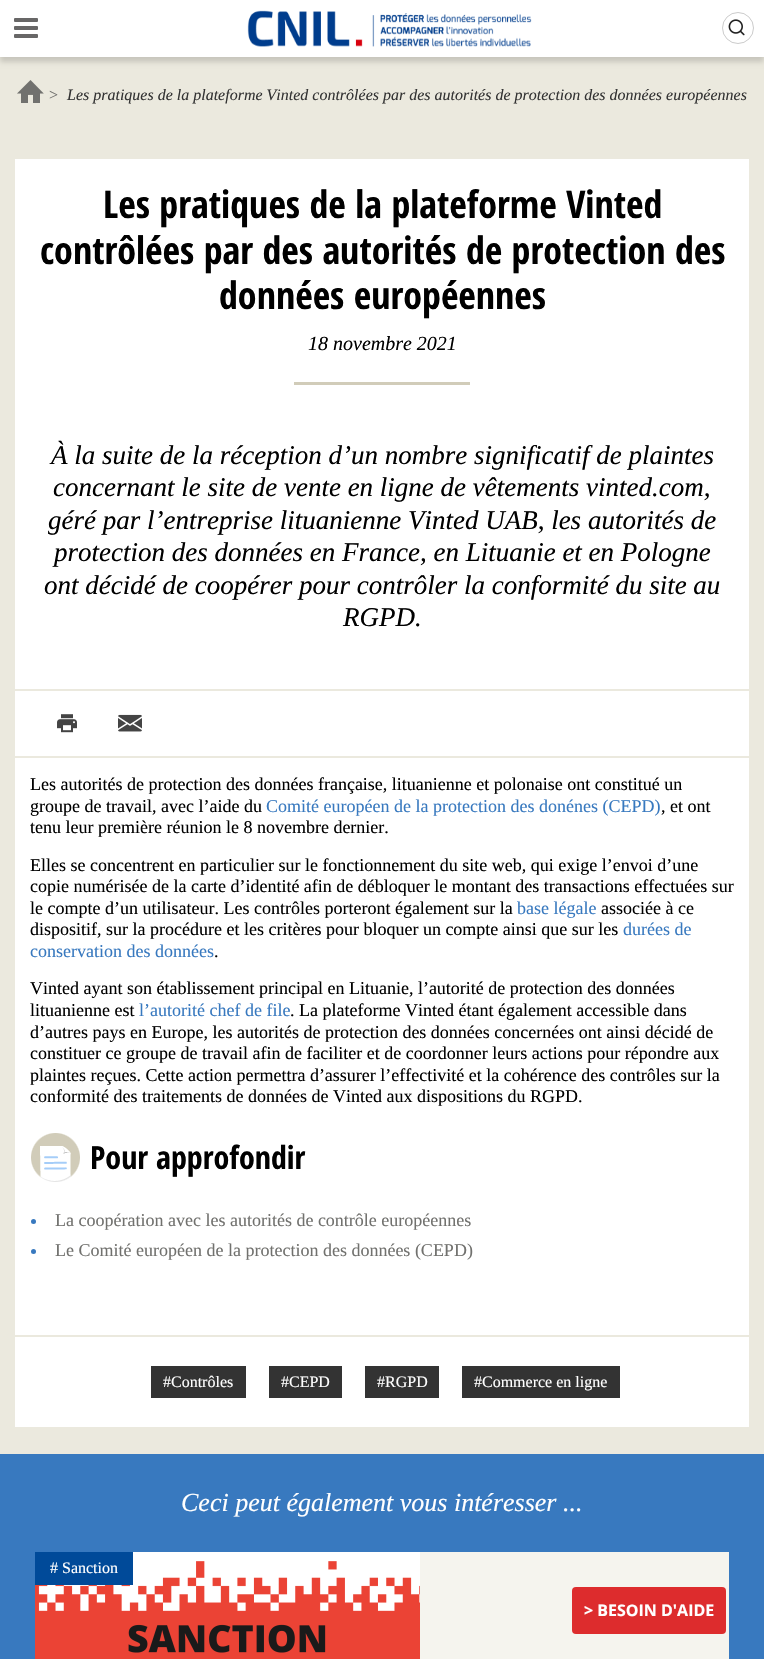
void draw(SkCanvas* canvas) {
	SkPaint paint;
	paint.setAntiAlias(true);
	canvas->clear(0xffebe9de);
	paint.setColor(0x26000000);
	paint.setMaskFilter(SkMaskFilter::MakeBlur(kNormal_SkBlurStyle, 2.5));
	canvas->drawRect(SkRect::MakeXYWH(0, 5, 764, 57), paint);
	paint.setMaskFilter(nullptr);
	paint.setColor(0xffffffff);
	canvas->drawRect(SkRect::MakeXYWH(0, 0, 764, 57), paint);
	paint.setColor(0xff686767);
	canvas->drawRoundRect(SkRect::MakeXYWH(14, 18, 24, 4), 1, 1, paint);
	canvas->drawRoundRect(SkRect::MakeXYWH(14, 26, 24, 4), 1, 1, paint);
	canvas->drawRoundRect(SkRect::MakeXYWH(14, 34, 24, 4), 1, 1, paint);
	canvas->drawImageRect(SkImages::DeferredFromEncodedData(SkData::MakeFromFileName("img1.png")), SkRect::MakeXYWH(247, 10, 285, 37), SkSamplingOptions());
	paint.setStroke(true);
	paint.setStrokeWidth(1);
	paint.setColor(0xffcbcbcb);
	canvas->drawCircle(738, 28, 15.5, paint);
	canvas->drawImageRect(SkImages::DeferredFromEncodedData(SkData::MakeFromFileName("img2.png")), SkRect::MakeXYWH(728, 19, 17, 17), SkSamplingOptions());
	canvas->drawImageRect(SkImages::DeferredFromEncodedData(SkData::MakeFromFileName("img3.png")), SkRect::MakeXYWH(17, 80, 27, 23), SkSamplingOptions());
	SkFont f1(fontMgr->matchFamilyStyle("Liberation Serif", SkFontStyle::Italic()), 16);
	f1.setSubpixel(true);
	paint.setStroke(false);
	paint.setColor(0xff71716e);
	canvas->drawString(">", 48, 100, f1, paint);
	paint.setColor(0xff333333);
	canvas->drawString("Les pratiques de la plateforme Vinted contrôlées par des autorités de protection des données européennes", 67, 100, f1, paint);
	paint.setColor(0xffffffff);
	canvas->drawRect(SkRect::MakeXYWH(15, 159, 734, 1268), paint);
	SkFont f2(fontMgr->matchFamilyStyle("Open Sans Condensed", SkFontStyle::Bold()), 38);
	f2.setSubpixel(true);
	paint.setColor(0xff000000);
	canvas->drawString("Les pratiques de la plateforme Vinted", 103, 218, f2, paint);
	canvas->drawString("contrôlées par des autorités de protection des", 40, 264, f2, paint);
	canvas->drawString("données européennes", 219, 309, f2, paint);
	SkFont f3(fontMgr->matchFamilyStyle("Liberation Serif", SkFontStyle::Italic()), 20);
	f3.setSubpixel(true);
	canvas->drawString("18 novembre 2021", 308, 350, f3, paint);
	paint.setColor(0xffd1ccb9);
	canvas->drawRect(SkRect::MakeXYWH(294, 382, 176, 3), paint);
	SkFont f4(fontMgr->matchFamilyStyle("Liberation Serif", SkFontStyle::Italic()), 27);
	f4.setSubpixel(true);
	paint.setColor(0xff000000);
	canvas->drawString("À la suite de la réception d’un nombre significatif de plaintes", 51, 464, f4, paint);
	canvas->drawString("concernant le site de vente en ligne de vêtements vinted.com,", 53, 496, f4, paint);
	canvas->drawString("géré par l’entreprise lituanienne Vinted UAB, les autorités de", 48, 529, f4, paint);
	canvas->drawString("protection des données en France, en Lituanie et en Pologne", 54, 561, f4, paint);
	canvas->drawString("ont décidé de coopérer pour contrôler la conformité du site au", 44, 594, f4, paint);
	canvas->drawString("RGPD.", 343, 626, f4, paint);
	paint.setColor(0xffebe9de);
	canvas->drawRect(SkRect::MakeXYWH(15, 689, 734, 2), paint);
	canvas->drawRect(SkRect::MakeXYWH(15, 756, 734, 2), paint);
	canvas->drawImageRect(SkImages::DeferredFromEncodedData(SkData::MakeFromFileName("img4.png")), SkRect::MakeXYWH(57, 714, 20, 19), SkSamplingOptions());
	canvas->drawImageRect(SkImages::DeferredFromEncodedData(SkData::MakeFromFileName("img5.png")), SkRect::MakeXYWH(118, 714, 24, 18), SkSamplingOptions());
	SkFont f5(fontMgr->matchFamilyStyle("Liberation Serif", SkFontStyle::Normal()), 18);
	f5.setSubpixel(true);
	paint.setColor(0xff000000);
	canvas->drawString("Les autorités de protection des données française, lituanienne et polonaise ont constitué un", 30, 790, f5, paint);
	canvas->drawString("groupe de travail, avec l’aide du", 30, 812, f5, paint);
	paint.setColor(0xff3879bf);
	canvas->drawString("Comité européen de la protection des donénes (CEPD)", 266, 812, f5, paint);
	paint.setColor(0xff000000);
	canvas->drawString(", et ont", 661, 812, f5, paint);
	canvas->drawString("tenu leur première réunion le 8 novembre dernier.", 30, 833, f5, paint);
	canvas->drawString("Elles se concentrent en particulier sur le fonctionnement du site web, qui exige l’envoi d’une", 30, 871, f5, paint);
	canvas->drawString("copie numérisée de la carte d’identité afin de débloquer le montant des transactions effectuées sur", 30, 892, f5, paint);
	canvas->drawString("le compte d’un utilisateur. Les contrôles porteront également sur la", 30, 914, f5, paint);
	paint.setColor(0xff3879bf);
	canvas->drawString("base légale", 517, 914, f5, paint);
	paint.setColor(0xff000000);
	canvas->drawString("associée à ce", 601, 914, f5, paint);
	canvas->drawString("dispositif, sur la procédure et les critères pour bloquer un compte ainsi que sur les", 30, 935, f5, paint);
	paint.setColor(0xff3879bf);
	canvas->drawString("durées de", 623, 935, f5, paint);
	canvas->drawString("conservation des données", 30, 957, f5, paint);
	paint.setColor(0xff000000);
	canvas->drawString(".", 214, 957, f5, paint);
	canvas->drawString("Vinted ayant son établissement principal en Lituanie, l’autorité de protection des données", 30, 994, f5, paint);
	canvas->drawString("lituanienne est", 30, 1016, f5, paint);
	paint.setColor(0xff3879bf);
	canvas->drawString("l’autorité chef de file", 139, 1016, f5, paint);
	paint.setColor(0xff000000);
	canvas->drawString(". La plateforme Vinted étant également accessible dans", 290, 1016, f5, paint);
	canvas->drawString("d’autres pays en Europe, les autorités de protection des données concernées ont ainsi décidé de", 30, 1038, f5, paint);
	canvas->drawString("constituer ce groupe de travail afin de faciliter et de coordonner leurs actions pour répondre aux", 30, 1059, f5, paint);
	canvas->drawString("plaintes reçues. Cette action permettra d’assurer l’effectivité et la cohérence des contrôles sur la", 30, 1081, f5, paint);
	canvas->drawString("conformité des traitements de données de Vinted aux dispositions du RGPD.", 30, 1102, f5, paint);
	canvas->drawImageRect(SkImages::DeferredFromEncodedData(SkData::MakeFromFileName("img6.png")), SkRect::MakeXYWH(31, 1133, 49, 49), SkSamplingOptions());
	SkFont f6(fontMgr->matchFamilyStyle("Open Sans Condensed", SkFontStyle::Bold()), 32);
	f6.setSubpixel(true);
	canvas->drawString("Pour approfondir", 90, 1169, f6, paint);
	paint.setColor(0xff3879bf);
	canvas->drawCircle(33.5, 1221.5, 2.5, paint);
	paint.setColor(0xff71716e);
	canvas->drawString("La coopération avec les autorités de contrôle européennes", 55, 1226, f5, paint);
	paint.setColor(0xff3879bf);
	canvas->drawCircle(33.5, 1251.5, 2.5, paint);
	paint.setColor(0xff71716e);
	canvas->drawString("Le Comité européen de la protection des données (CEPD)", 55, 1256, f5, paint);
	paint.setColor(0xffebe9de);
	canvas->drawRect(SkRect::MakeXYWH(15, 1335, 734, 2), paint);
	paint.setColor(0xff333333);
	canvas->drawRect(SkRect::MakeXYWH(151, 1366, 95, 32), paint);
	SkFont f7(fontMgr->matchFamilyStyle("Liberation Serif", SkFontStyle::Normal()), 16);
	f7.setSubpixel(true);
	paint.setColor(0xffffffff);
	canvas->drawString("#Contrôles", 163, 1387, f7, paint);
	paint.setColor(0xff333333);
	canvas->drawRect(SkRect::MakeXYWH(269, 1366, 73, 32), paint);
	paint.setColor(0xffffffff);
	canvas->drawString("#CEPD", 281, 1387, f7, paint);
	paint.setColor(0xff333333);
	canvas->drawRect(SkRect::MakeXYWH(365, 1366, 74, 32), paint);
	paint.setColor(0xffffffff);
	canvas->drawString("#RGPD", 377, 1387, f7, paint);
	paint.setColor(0xff333333);
	canvas->drawRect(SkRect::MakeXYWH(462, 1366, 158, 32), paint);
	paint.setColor(0xffffffff);
	canvas->drawString("#Commerce en ligne", 474, 1387, f7, paint);
	paint.setColor(0xff3879bf);
	canvas->drawRect(SkRect::MakeXYWH(0, 1454, 764, 205), paint);
	SkFont f8(fontMgr->matchFamilyStyle("Liberation Serif", SkFontStyle::Italic()), 26);
	f8.setSubpixel(true);
	paint.setColor(0xffffffff);
	canvas->drawString("Ceci peut également vous intéresser ...", 181, 1511, f8, paint);
	paint.setColor(0xfff5f4ee);
	canvas->drawRect(SkRect::MakeXYWH(133, 1552, 596, 107), paint);
	canvas->drawImageRect(SkImages::DeferredFromEncodedData(SkData::MakeFromFileName("img7.png")), SkRect::MakeXYWH(35, 1552, 385, 107), SkSamplingOptions());
	paint.setColor(0xff004a99);
	canvas->drawRect(SkRect::MakeXYWH(35, 1552, 98, 33), paint);
	paint.setColor(0xffffffff);
	canvas->drawString("# Sanction", 50, 1573, f7, paint);
	paint.setColor(0xffdd2c2d);
	canvas->drawRoundRect(SkRect::MakeXYWH(572, 1587, 154, 47), 4, 4, paint);
	SkFont f9(fontMgr->matchFamilyStyle("Open Sans", SkFontStyle::Bold()), 16);
	f9.setSubpixel(true);
	paint.setColor(0xffffffff);
	canvas->drawString("> BESOIN D'AIDE", 584, 1616, f9, paint);
}
